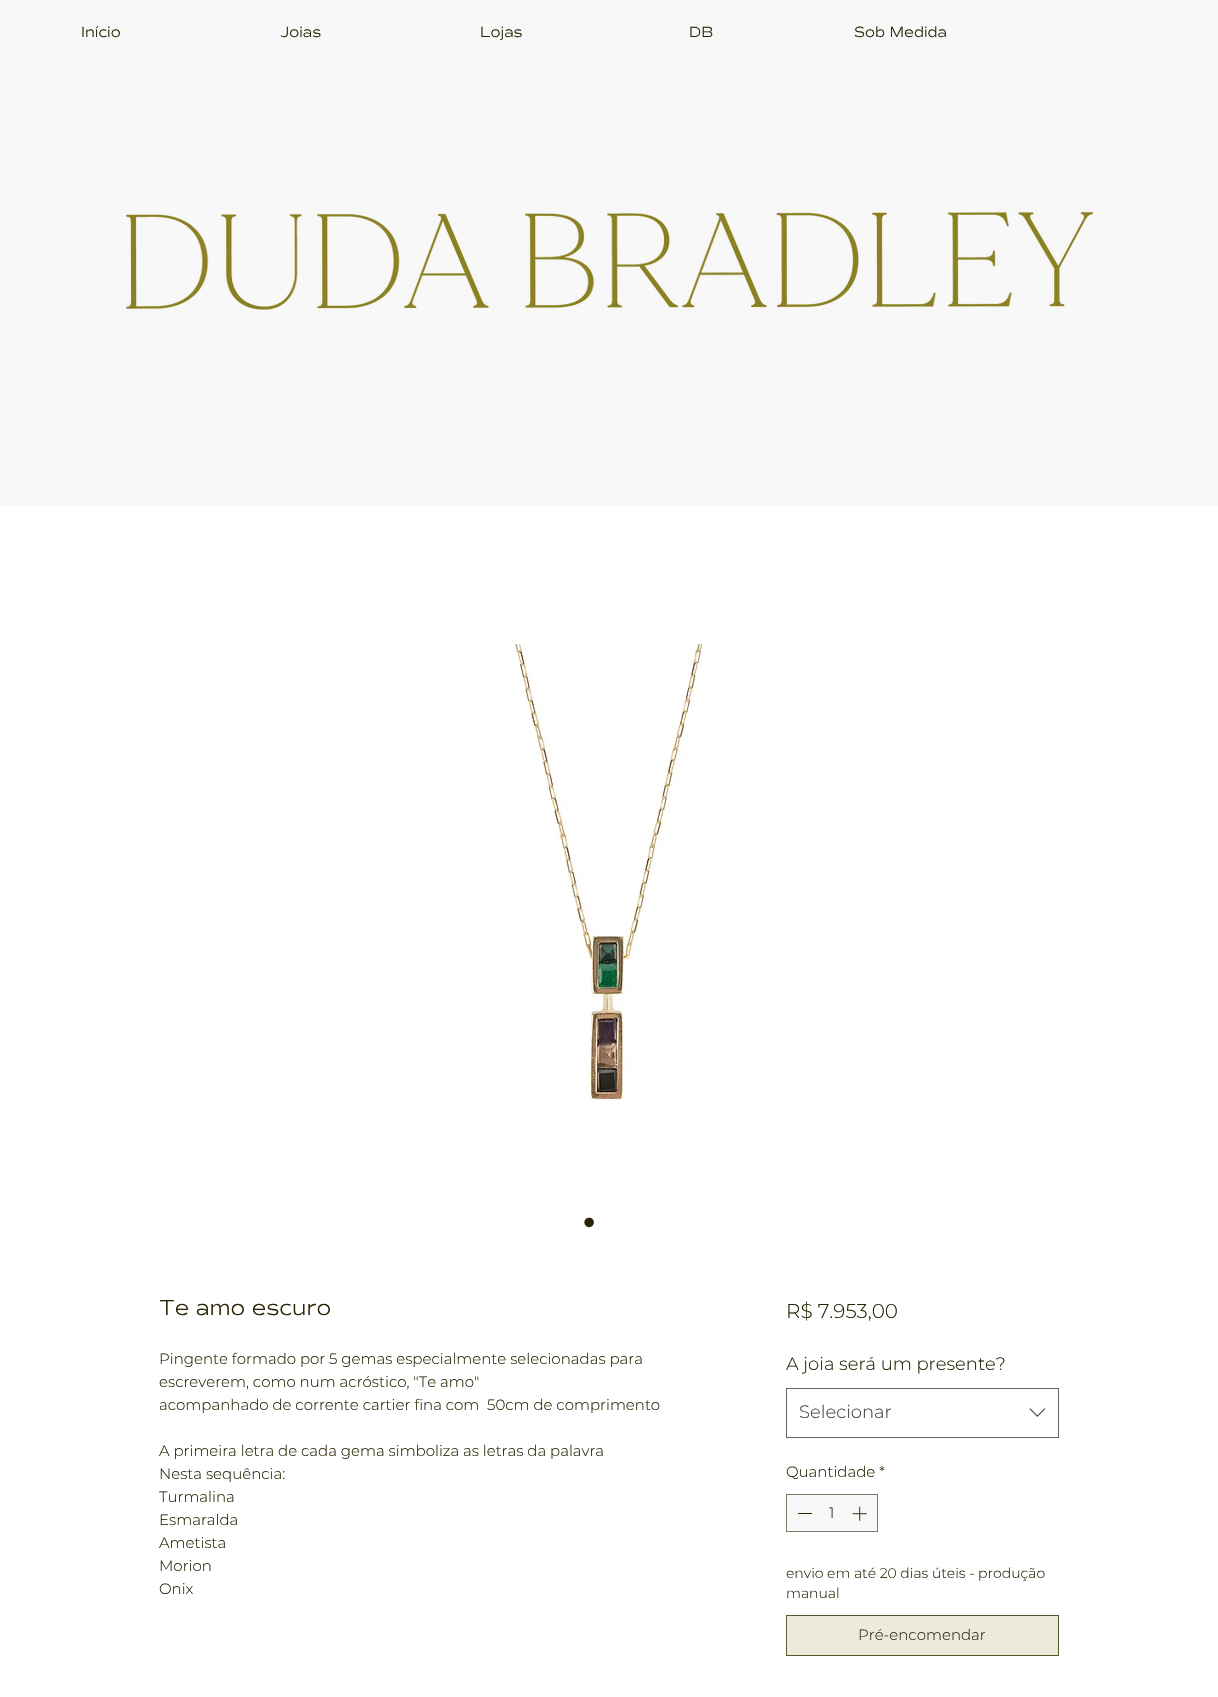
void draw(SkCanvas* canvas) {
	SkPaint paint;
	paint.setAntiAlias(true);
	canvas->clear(0xffffffff);
	paint.setColor(0xfff8f8f8);
	canvas->drawRect(SkRect::MakeXYWH(0, 0, 1218, 505), paint);
	SkFont f1(fontMgr->matchFamilyStyle("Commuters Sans", SkFontStyle(300, SkFontStyle::kNormal_Width, SkFontStyle::kUpright_Slant)), 15);
	f1.setSubpixel(true);
	paint.setColor(0xff282405);
	canvas->drawString("Início", 81, 37, f1, paint);
	canvas->drawString("Joias", 280, 37, f1, paint);
	canvas->drawString("Lojas", 480, 37, f1, paint);
	canvas->drawString("DB", 689, 37, f1, paint);
	canvas->drawString("Sob Medida", 854, 37, f1, paint);
	canvas->drawImageRect(SkImages::DeferredFromEncodedData(SkData::MakeFromFileName("img1.png")), SkRect::MakeXYWH(124, 211, 969, 99), SkSamplingOptions());
	canvas->drawImageRect(SkImages::DeferredFromEncodedData(SkData::MakeFromFileName("img2.png")), SkRect::MakeXYWH(514, 644, 189, 457), SkSamplingOptions());
	SkFont f2(fontMgr->matchFamilyStyle("Liberation Sans", SkFontStyle::Normal()), 35);
	f2.setSubpixel(true);
	canvas->drawString("•", 583, 1234, f2, paint);
	SkFont f3(fontMgr->matchFamilyStyle("Commuters Sans", SkFontStyle(300, SkFontStyle::kNormal_Width, SkFontStyle::kUpright_Slant)), 22);
	f3.setSubpixel(true);
	canvas->drawString("Te amo escuro", 159, 1315, f3, paint);
	SkFont f4(fontMgr->matchFamilyStyle("Montserrat", SkFontStyle(300, SkFontStyle::kNormal_Width, SkFontStyle::kUpright_Slant)), 15);
	f4.setSubpixel(true);
	canvas->drawString("Pingente formado por 5 gemas especialmente selecionadas para", 159, 1364, f4, paint);
	canvas->drawString("escreverem, como num acróstico, \"Te amo\"", 159, 1387, f4, paint);
	canvas->drawString("acompanhado de corrente cartier fina com  50cm de comprimento", 159, 1410, f4, paint);
	canvas->drawString("A primeira letra de cada gema simboliza as letras da palavra", 159, 1456, f4, paint);
	canvas->drawString("Nesta sequência:", 159, 1479, f4, paint);
	canvas->drawString("Turmalina", 159, 1502, f4, paint);
	canvas->drawString("Esmaralda", 159, 1525, f4, paint);
	canvas->drawString("Ametista", 159, 1548, f4, paint);
	canvas->drawString("Morion", 159, 1571, f4, paint);
	canvas->drawString("Onix", 159, 1594, f4, paint);
	SkFont f5(fontMgr->matchFamilyStyle("Montserrat", SkFontStyle(300, SkFontStyle::kNormal_Width, SkFontStyle::kUpright_Slant)), 20);
	f5.setSubpixel(true);
	canvas->drawString("R$ 7.953,00", 786, 1318, f5, paint);
	SkFont f6(fontMgr->matchFamilyStyle("Montserrat", SkFontStyle(300, SkFontStyle::kNormal_Width, SkFontStyle::kUpright_Slant)), 18);
	f6.setSubpixel(true);
	canvas->drawString("A joia será um presente?", 786, 1370, f6, paint);
	paint.setStroke(true);
	paint.setStrokeWidth(1);
	paint.setColor(0xff666666);
	canvas->drawRect(SkRect::MakeXYWH(786.5, 1388.5, 272, 49), paint);
	paint.setStroke(false);
	paint.setColor(0xff444444);
	canvas->drawString("Selecionar", 799, 1418, f6, paint);
	canvas->drawImageRect(SkImages::DeferredFromEncodedData(SkData::MakeFromFileName("img3.png")), SkRect::MakeXYWH(1029, 1408, 17, 9), SkSamplingOptions());
	paint.setColor(0xff282405);
	canvas->drawString("Quantidade *", 786, 1477, f4, paint);
	paint.setColor(0xfff8f8f8);
	canvas->drawRect(SkRect::MakeXYWH(786.5, 1494.5, 91, 37), paint);
	paint.setStroke(true);
	paint.setColor(0xff7b7966);
	canvas->drawRect(SkRect::MakeXYWH(786.5, 1494.5, 91, 37), paint);
	paint.setStroke(false);
	paint.setColor(0xff282405);
	canvas->drawRect(SkRect::MakeXYWH(798, 1513, 14, 1), paint);
	canvas->drawString("1", 829, 1518, f4, paint);
	canvas->drawImageRect(SkImages::DeferredFromEncodedData(SkData::MakeFromFileName("img4.png")), SkRect::MakeXYWH(852, 1506, 15, 15), SkSamplingOptions());
	SkFont f7(fontMgr->matchFamilyStyle("Montserrat", SkFontStyle(300, SkFontStyle::kNormal_Width, SkFontStyle::kUpright_Slant)), 14);
	f7.setSubpixel(true);
	canvas->drawString("envio em até 20 dias úteis - produção", 786, 1578, f7, paint);
	canvas->drawString("manual", 786, 1598, f7, paint);
	paint.setColor(0xffecebdb);
	canvas->drawRect(SkRect::MakeXYWH(786.5, 1615.5, 272, 40), paint);
	paint.setStroke(true);
	paint.setColor(0xff58562a);
	canvas->drawRect(SkRect::MakeXYWH(786.5, 1615.5, 272, 40), paint);
	paint.setStroke(false);
	paint.setColor(0xff2c2b15);
	canvas->drawString("Pré-encomendar", 858, 1640, f4, paint);
}
